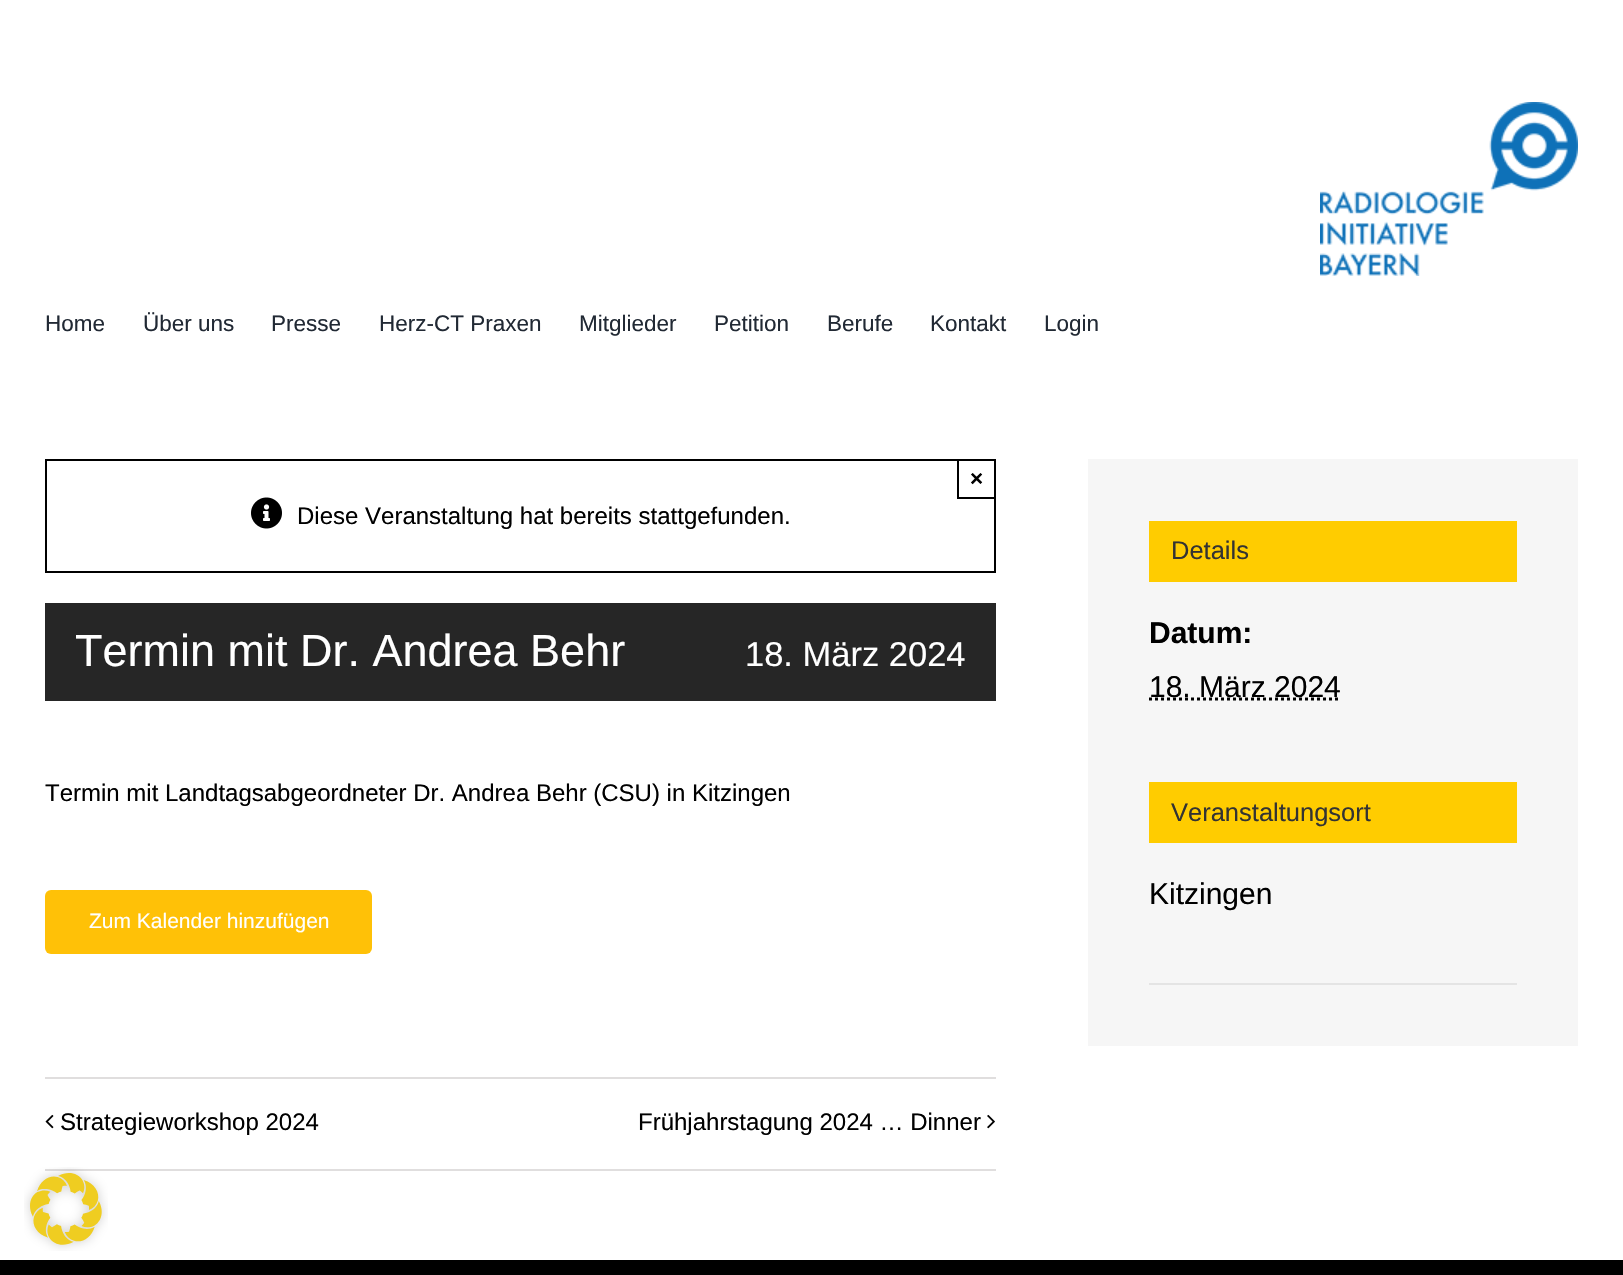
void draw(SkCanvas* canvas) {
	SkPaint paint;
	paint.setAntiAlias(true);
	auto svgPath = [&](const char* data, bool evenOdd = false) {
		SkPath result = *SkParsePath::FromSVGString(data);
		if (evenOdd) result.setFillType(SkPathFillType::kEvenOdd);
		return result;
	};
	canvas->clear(0xffffffff);
	canvas->drawImageRect(SkImages::DeferredFromEncodedData(SkData::MakeFromFileName("img1.png")), SkRect::MakeXYWH(1320, 102, 258, 174), SkSamplingOptions());
	SkFont f1(fontMgr->matchFamilyStyle("Liberation Sans", SkFontStyle::Normal()), 22.5);
	f1.setSubpixel(true);
	paint.setColor(0xff212934);
	canvas->drawString("Home", 45, 331, f1, paint);
	canvas->drawString("Über uns", 143, 331, f1, paint);
	canvas->drawString("Presse", 271, 331, f1, paint);
	canvas->drawString("Herz-CT Praxen", 379, 331, f1, paint);
	canvas->drawString("Mitglieder", 579, 331, f1, paint);
	canvas->drawString("Petition", 714, 331, f1, paint);
	canvas->drawString("Berufe", 827, 331, f1, paint);
	canvas->drawString("Kontakt", 930, 331, f1, paint);
	canvas->drawString("Login", 1044, 331, f1, paint);
	paint.setStroke(true);
	paint.setStrokeWidth(2);
	paint.setColor(0xff000000);
	canvas->drawRect(SkRect::MakeXYWH(46, 460, 949, 112), paint);
	paint.setStroke(false);
	canvas->drawRect(SkRect::MakeXYWH(957, 497, 39, 2), paint);
	canvas->drawRect(SkRect::MakeXYWH(957, 459, 2, 39), paint);
	SkFont f2(fontMgr->matchFamilyStyle("Liberation Sans", SkFontStyle::Bold()), 22.5);
	f2.setSubpixel(true);
	canvas->drawString("×", 970, 486, f2, paint);
	canvas->drawImageRect(SkImages::DeferredFromEncodedData(SkData::MakeFromFileName("img2.png")), SkRect::MakeXYWH(251, 497, 31, 32), SkSamplingOptions());
	SkFont f3(fontMgr->matchFamilyStyle("Liberation Sans", SkFontStyle::Normal()), 24);
	f3.setSubpixel(true);
	canvas->drawString("Diese Veranstaltung hat bereits stattgefunden.", 297, 524, f3, paint);
	paint.setColor(0xff262626);
	canvas->drawRect(SkRect::MakeXYWH(45, 603, 951, 98), paint);
	SkFont f4(fontMgr->matchFamilyStyle("Liberation Sans", SkFontStyle::Normal()), 45);
	f4.setSubpixel(true);
	paint.setColor(0xffffffff);
	canvas->drawString("Termin mit Dr. Andrea Behr", 75, 666, f4, paint);
	SkFont f5(fontMgr->matchFamilyStyle("Liberation Sans", SkFontStyle::Normal()), 34.5);
	f5.setSubpixel(true);
	canvas->drawString("18. März 2024", 745, 666, f5, paint);
	paint.setColor(0xff000000);
	canvas->drawString("Termin mit Landtagsabgeordneter Dr. Andrea Behr (CSU) in Kitzingen", 45, 801, f3, paint);
	paint.setColor(0xffffc107);
	canvas->drawRoundRect(SkRect::MakeXYWH(45, 890, 327, 64), 6, 6, paint);
	SkFont f6(fontMgr->matchFamilyStyle("Liberation Sans", SkFontStyle::Normal()), 21);
	f6.setSubpixel(true);
	paint.setColor(0xffffffff);
	canvas->drawString("Zum Kalender hinzufügen", 89, 928, f6, paint);
	paint.setColor(0xffe0dede);
	canvas->drawRect(SkRect::MakeXYWH(45, 1077, 951, 2), paint);
	canvas->drawRect(SkRect::MakeXYWH(45, 1169, 951, 2), paint);
	canvas->drawImageRect(SkImages::DeferredFromEncodedData(SkData::MakeFromFileName("img3.png")), SkRect::MakeXYWH(45, 1114, 9, 15), SkSamplingOptions());
	paint.setColor(0xff000000);
	canvas->drawString("Strategieworkshop 2024", 60, 1130, f3, paint);
	canvas->drawString("Frühjahrstagung 2024 … Dinner", 638, 1130, f3, paint);
	canvas->drawImageRect(SkImages::DeferredFromEncodedData(SkData::MakeFromFileName("img4.png")), SkRect::MakeXYWH(987, 1114, 8, 15), SkSamplingOptions());
	paint.setColor(0xfff6f6f6);
	canvas->drawRect(SkRect::MakeXYWH(1088, 459, 490, 587), paint);
	paint.setColor(0xffffcc00);
	canvas->drawRect(SkRect::MakeXYWH(1149, 521, 368, 61), paint);
	SkFont f7(fontMgr->matchFamilyStyle("Liberation Sans", SkFontStyle::Normal()), 25.5);
	f7.setSubpixel(true);
	paint.setColor(0xff333333);
	canvas->drawString("Details", 1171, 559, f7, paint);
	SkFont f8(fontMgr->matchFamilyStyle("Liberation Sans", SkFontStyle::Bold()), 30);
	f8.setSubpixel(true);
	paint.setColor(0xff000000);
	canvas->drawString("Datum:", 1149, 643, f8, paint);
	paint.setStroke(true);
	paint.setStrokeWidth(3);
	paint.setPathEffect(SkDashPathEffect::Make({{3, 3}}, 0));
	canvas->drawPath(svgPath("M1149 699H1340.5"), paint);
	paint.setPathEffect(nullptr);
	SkFont f9(fontMgr->matchFamilyStyle("Liberation Sans", SkFontStyle::Normal()), 30);
	f9.setSubpixel(true);
	paint.setStroke(false);
	canvas->drawString("18. März 2024", 1149, 697, f9, paint);
	paint.setColor(0xffffcc00);
	canvas->drawRect(SkRect::MakeXYWH(1149, 782, 368, 61), paint);
	paint.setColor(0xff333333);
	canvas->drawString("Veranstaltungsort", 1171, 821, f7, paint);
	paint.setColor(0xff000000);
	canvas->drawString("Kitzingen", 1149, 904, f9, paint);
	paint.setColor(0xffe4e4e4);
	canvas->drawRect(SkRect::MakeXYWH(1149, 983, 368, 2), paint);
	paint.setColor(0xff000000);
	canvas->drawRect(SkRect::MakeXYWH(0, 1260, 1623, 15), paint);
	canvas->drawImageRect(SkImages::DeferredFromEncodedData(SkData::MakeFromFileName("img5.png")), SkRect::MakeXYWH(24, 1167, 84, 84), SkSamplingOptions());
}
